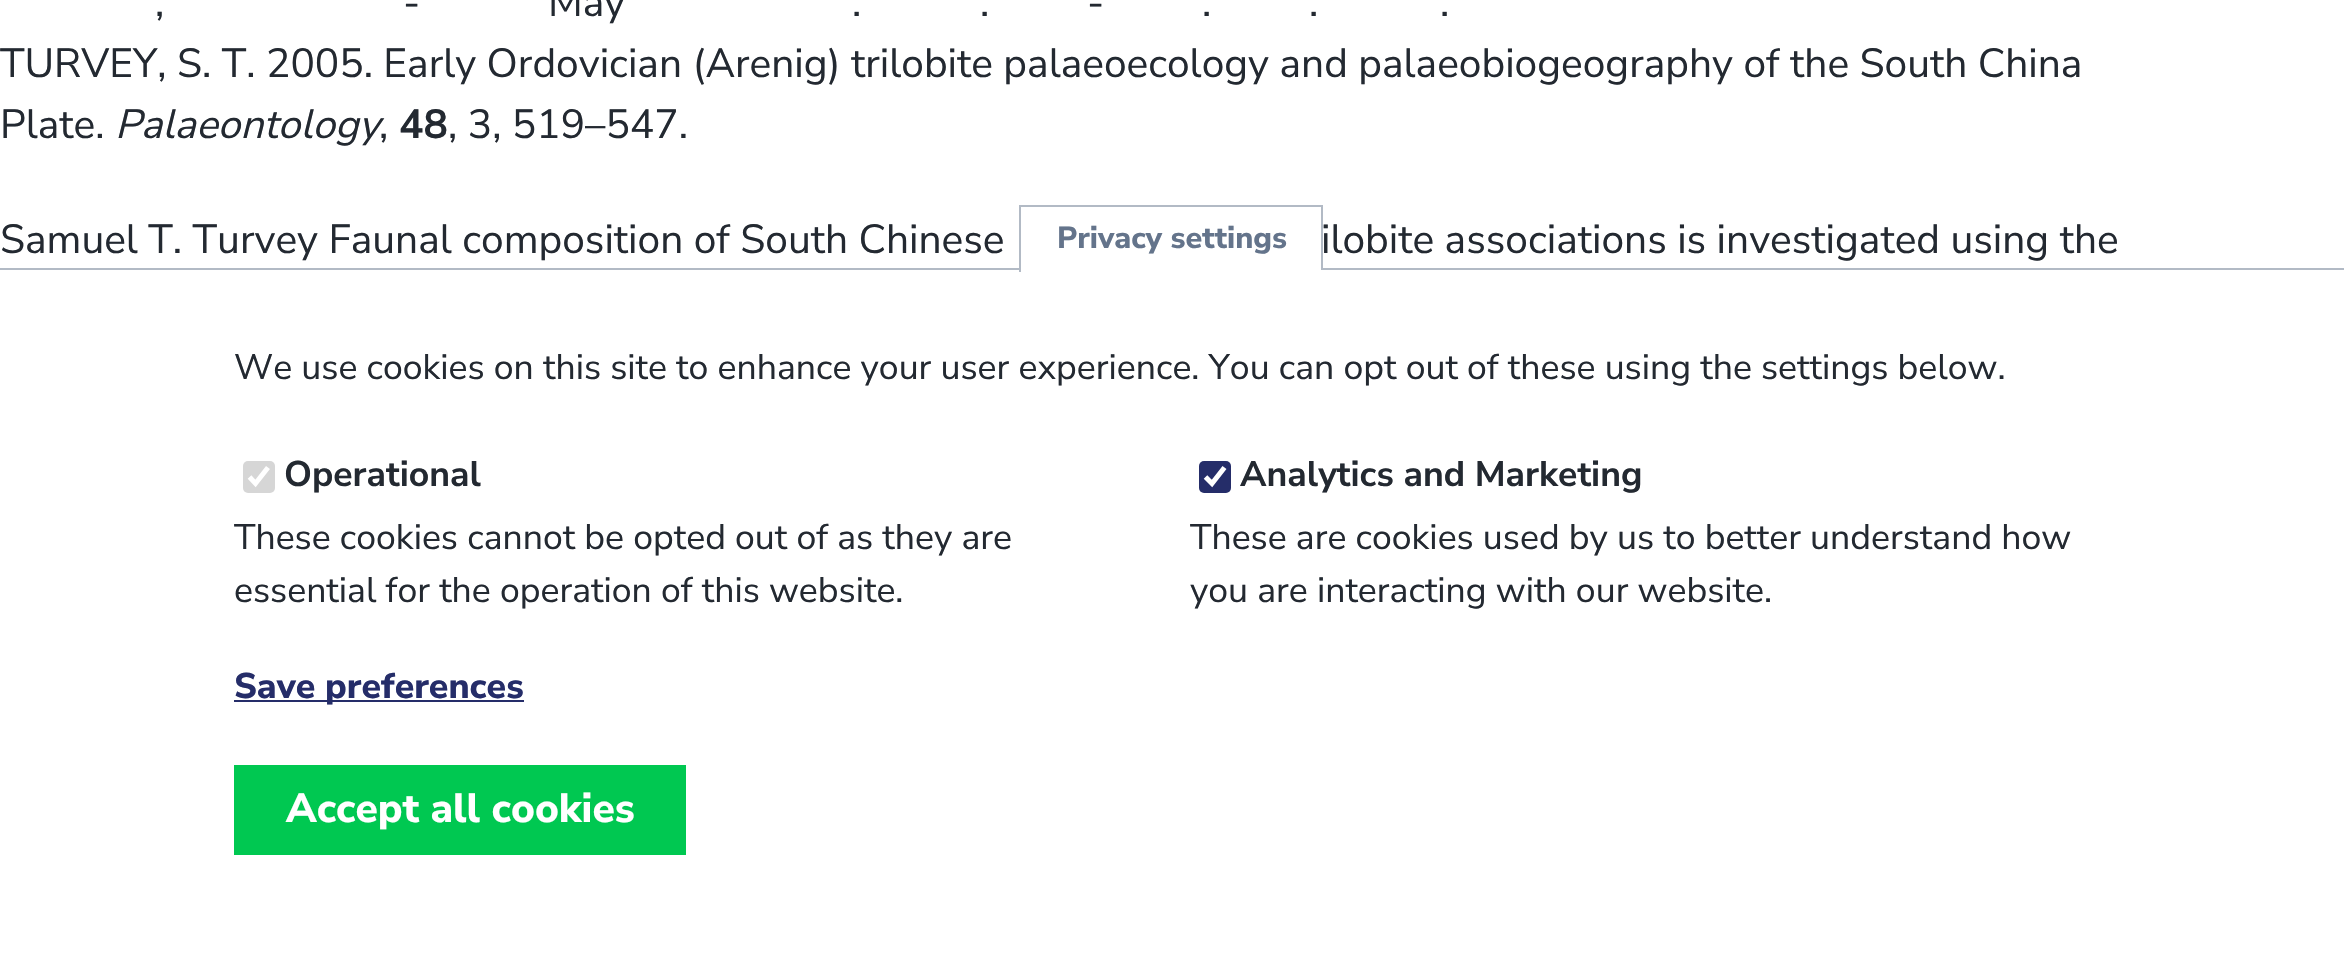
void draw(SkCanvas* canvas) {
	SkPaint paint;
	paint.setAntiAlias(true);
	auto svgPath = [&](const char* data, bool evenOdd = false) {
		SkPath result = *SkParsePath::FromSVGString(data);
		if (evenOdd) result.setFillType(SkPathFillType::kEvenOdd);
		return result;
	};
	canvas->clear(0xffffffff);
	SkFont f1(fontMgr->matchFamilyStyle("Nunito Sans", SkFontStyle(200, SkFontStyle::kNormal_Width, SkFontStyle::kUpright_Slant)), 40.68);
	f1.setSubpixel(true);
	paint.setColor(0xff232931);
	canvas->drawString("-", 403, 16, f1, paint);
	canvas->drawString("May", 548, 16, f1, paint);
	canvas->drawString("-", 1087, 16, f1, paint);
	canvas->drawString(",", 155, 16, f1, paint);
	canvas->drawString(".", 852, 16, f1, paint);
	canvas->drawString(".", 980, 16, f1, paint);
	canvas->drawString(".", 1202, 16, f1, paint);
	canvas->drawString(".", 1309, 16, f1, paint);
	canvas->drawString(".", 1440, 16, f1, paint);
	canvas->drawString("TURVEY, S. T. 2005. Early Ordovician (Arenig) trilobite palaeoecology and palaeobiogeography of the South China", 0, 77, f1, paint);
	canvas->drawString("Plate.", 0, 138, f1, paint);
	SkFont f2(fontMgr->matchFamilyStyle("Nunito Sans", SkFontStyle(200, SkFontStyle::kNormal_Width, SkFontStyle::kItalic_Slant)), 40.68);
	f2.setSubpixel(true);
	canvas->drawString("Palaeontology", 115, 138, f2, paint);
	SkFont f3(fontMgr->matchFamilyStyle("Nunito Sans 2", SkFontStyle(200, SkFontStyle::kNormal_Width, SkFontStyle::kUpright_Slant)), 40.68);
	f3.setSubpixel(true);
	canvas->drawString("48", 399, 138, f3, paint);
	canvas->drawString(", 3, 519–547.", 448, 138, f1, paint);
	canvas->drawString(",", 379, 138, f1, paint);
	canvas->drawString("Samuel T. Turvey Faunal composition of South Chinese", 0, 253, f1, paint);
	canvas->drawString("ilobite associations is investigated using the", 1321, 253, f1, paint);
	paint.setColor(0xffb2bac5);
	canvas->drawRect(SkRect::MakeXYWH(0, 268, 2344, 2), paint);
	paint.setColor(0xffffffff);
	canvas->drawRect(SkRect::MakeXYWH(1021, 268, 300, 2), paint);
	paint.setColor(0xffb2bac5);
	canvas->drawRect(SkRect::MakeXYWH(1019, 205, 304, 2), paint);
	canvas->drawRect(SkRect::MakeXYWH(1321, 205, 2, 67), paint);
	paint.setColor(0xffffffff);
	canvas->drawRect(SkRect::MakeXYWH(1321, 270, 2, 2), paint);
	paint.setColor(0xffb2bac5);
	canvas->drawRect(SkRect::MakeXYWH(1019, 205, 2, 67), paint);
	SkFont f4(fontMgr->matchFamilyStyle("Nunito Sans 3", SkFontStyle(200, SkFontStyle::kNormal_Width, SkFontStyle::kUpright_Slant)), 30.5);
	f4.setSubpixel(true);
	paint.setColor(0xff64748b);
	canvas->drawString("Privacy settings", 1057, 248, f4, paint);
	SkFont f5(fontMgr->matchFamilyStyle("Nunito Sans", SkFontStyle(200, SkFontStyle::kNormal_Width, SkFontStyle::kUpright_Slant)), 35.6);
	f5.setSubpixel(true);
	paint.setColor(0xff232931);
	canvas->drawString("We use cookies on this site to enhance your user experience. You can opt out of these using the settings below.", 234, 379, f5, paint);
	paint.setColor(0xffd6d6d6);
	canvas->drawRoundRect(SkRect::MakeXYWH(243, 461, 32, 32), 5, 5, paint);
	paint.setStroke(true);
	paint.setStrokeWidth(5);
	paint.setColor(0xffffffff);
	canvas->drawPath(svgPath("M249.5 477L255.5 483.5L268 467.5"), paint);
	SkFont f6(fontMgr->matchFamilyStyle("Nunito Sans 2", SkFontStyle(200, SkFontStyle::kNormal_Width, SkFontStyle::kUpright_Slant)), 35.6);
	f6.setSubpixel(true);
	paint.setStroke(false);
	paint.setColor(0xff232931);
	canvas->drawString("Operational", 284, 486, f6, paint);
	canvas->drawString("These cookies cannot be opted out of as they are", 234, 549, f5, paint);
	canvas->drawString("essential for the operation of this website.", 234, 602, f5, paint);
	paint.setColor(0xff252d69);
	canvas->drawRoundRect(SkRect::MakeXYWH(1199, 461, 32, 32), 5, 5, paint);
	paint.setStroke(true);
	paint.setColor(0xffffffff);
	canvas->drawPath(svgPath("M1205.5 477L1212 483.5L1224.5 467.5"), paint);
	paint.setStroke(false);
	paint.setColor(0xff232931);
	canvas->drawString("Analytics and Marketing", 1240, 486, f6, paint);
	canvas->drawString("These are cookies used by us to better understand how", 1190, 549, f5, paint);
	canvas->drawString("you are interacting with our website.", 1190, 602, f5, paint);
	paint.setColor(0xff252d69);
	canvas->drawRect(SkRect::MakeXYWH(234, 700, 290, 2), paint);
	SkFont f7(fontMgr->matchFamilyStyle("Nunito Sans 3", SkFontStyle(200, SkFontStyle::kNormal_Width, SkFontStyle::kUpright_Slant)), 35.6);
	f7.setSubpixel(true);
	canvas->drawString("Save preferences", 234, 698, f7, paint);
	paint.setColor(0xff00c851);
	canvas->drawRect(SkRect::MakeXYWH(234, 765, 452, 90), paint);
	SkFont f8(fontMgr->matchFamilyStyle("Nunito Sans 3", SkFontStyle(200, SkFontStyle::kNormal_Width, SkFontStyle::kUpright_Slant)), 40.68);
	f8.setSubpixel(true);
	paint.setColor(0xffffffff);
	canvas->drawString("Accept all cookies", 286, 822, f8, paint);
}
